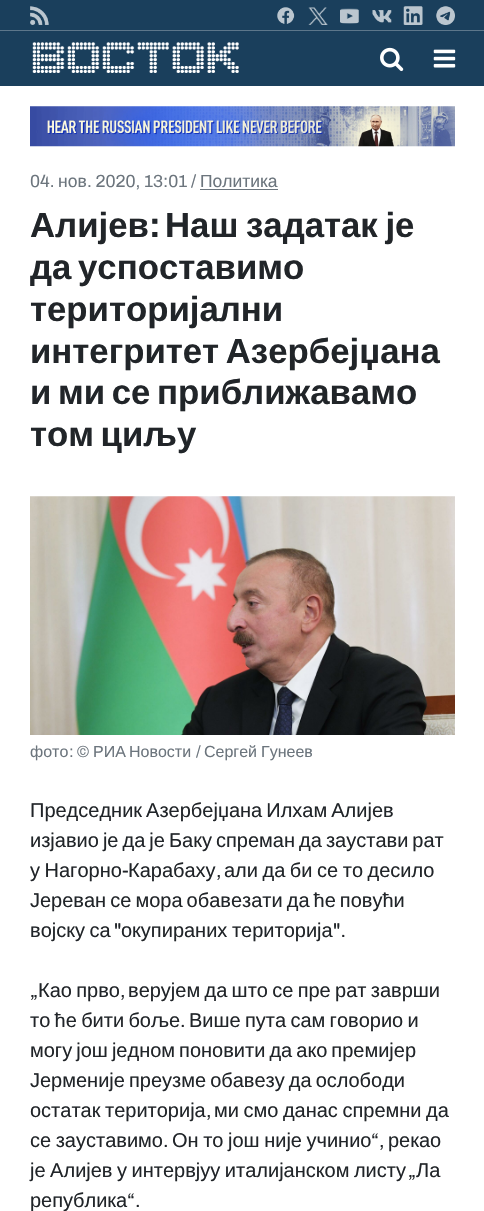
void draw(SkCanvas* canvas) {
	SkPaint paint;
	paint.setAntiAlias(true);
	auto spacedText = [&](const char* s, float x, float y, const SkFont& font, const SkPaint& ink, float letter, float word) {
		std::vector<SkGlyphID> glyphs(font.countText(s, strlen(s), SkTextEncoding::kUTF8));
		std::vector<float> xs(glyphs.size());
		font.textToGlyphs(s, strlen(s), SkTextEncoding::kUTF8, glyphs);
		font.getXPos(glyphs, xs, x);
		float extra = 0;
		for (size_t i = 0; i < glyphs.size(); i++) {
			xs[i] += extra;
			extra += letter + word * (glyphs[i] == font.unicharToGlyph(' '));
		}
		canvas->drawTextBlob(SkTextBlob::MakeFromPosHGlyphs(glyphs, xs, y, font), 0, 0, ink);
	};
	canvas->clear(0xffffffff);
	paint.setColor(0xff1a3f5c);
	canvas->drawRect(SkRect::MakeXYWH(0, 0, 484, 30), paint);
	paint.setColor(0xff5d778b);
	canvas->drawRect(SkRect::MakeXYWH(0, 30, 484, 1), paint);
	canvas->drawImageRect(SkImages::DeferredFromEncodedData(SkData::MakeFromFileName("img1.png")), SkRect::MakeXYWH(30, 6, 19, 19), SkSamplingOptions());
	canvas->drawImageRect(SkImages::DeferredFromEncodedData(SkData::MakeFromFileName("img2.png")), SkRect::MakeXYWH(277, 7, 18, 17), SkSamplingOptions());
	canvas->drawImageRect(SkImages::DeferredFromEncodedData(SkData::MakeFromFileName("img3.png")), SkRect::MakeXYWH(308, 7, 20, 18), SkSamplingOptions());
	canvas->drawImageRect(SkImages::DeferredFromEncodedData(SkData::MakeFromFileName("img4.png")), SkRect::MakeXYWH(340, 8, 19, 16), SkSamplingOptions());
	canvas->drawImageRect(SkImages::DeferredFromEncodedData(SkData::MakeFromFileName("img5.png")), SkRect::MakeXYWH(372, 10, 20, 13), SkSamplingOptions());
	canvas->drawImageRect(SkImages::DeferredFromEncodedData(SkData::MakeFromFileName("img6.png")), SkRect::MakeXYWH(403, 6, 20, 19), SkSamplingOptions());
	canvas->drawImageRect(SkImages::DeferredFromEncodedData(SkData::MakeFromFileName("img7.png")), SkRect::MakeXYWH(436, 6, 19, 19), SkSamplingOptions());
	paint.setColor(0xff1a3f5c);
	canvas->drawRect(SkRect::MakeXYWH(0, 31, 484, 55), paint);
	canvas->drawImageRect(SkImages::DeferredFromEncodedData(SkData::MakeFromFileName("img8.png")), SkRect::MakeXYWH(32, 42, 207, 31), SkSamplingOptions());
	canvas->drawImageRect(SkImages::DeferredFromEncodedData(SkData::MakeFromFileName("img9.png")), SkRect::MakeXYWH(380, 47, 24, 25), SkSamplingOptions());
	canvas->drawImageRect(SkImages::DeferredFromEncodedData(SkData::MakeFromFileName("img10.png")), SkRect::MakeXYWH(433, 49, 23, 19), SkSamplingOptions());
	canvas->drawImageRect(SkImages::DeferredFromEncodedData(SkData::MakeFromFileName("img11.png")), SkRect::MakeXYWH(30, 106, 425, 41), SkSamplingOptions());
	SkFont f1(fontMgr->matchFamilyStyle("Archivo", SkFontStyle::Normal()), 17.5);
	f1.setSubpixel(true);
	paint.setColor(0xff6c757d);
	canvas->drawString("04.", 30, 187, f1, paint);
	SkFont f2(fontMgr->matchFamilyStyle("Liberation Sans", SkFontStyle::Normal()), 17.5);
	f2.setSubpixel(true);
	canvas->drawString("нов", 58, 187, f2, paint);
	canvas->drawString(". 2020, 13:01 /", 87, 187, f1, paint);
	canvas->drawString("Политика", 200, 187, f2, paint);
	canvas->drawRect(SkRect::MakeXYWH(200, 189, 78, 1), paint);
	SkFont f3(fontMgr->matchFamilyStyle("Liberation Sans", SkFontStyle::Bold()), 34.75);
	f3.setSubpixel(true);
	paint.setColor(0xff212529);
	canvas->drawString("Алијев", 30, 237, f3, paint);
	SkFont f4(fontMgr->matchFamilyStyle("Archivo", SkFontStyle::Bold()), 34.75);
	f4.setSubpixel(true);
	canvas->drawString(":", 149, 237, f4, paint);
	spacedText("Наш задатак је", 165, 237, f3, paint, 0, -2);
	spacedText("да успоставимо", 30, 279, f3, paint, 0, -3);
	canvas->drawString("територијални", 30, 321, f3, paint);
	spacedText("интегритет Азербејџана", 30, 363, f3, paint, 0, -3);
	spacedText("и ми се приближавамо", 30, 404, f3, paint, 0, -3);
	spacedText("том циљу", 30, 446, f3, paint, 0, -3);
	canvas->drawImageRect(SkImages::DeferredFromEncodedData(SkData::MakeFromFileName("img12.png")), SkRect::MakeXYWH(30, 496, 425, 239), SkSamplingOptions());
	SkFont f5(fontMgr->matchFamilyStyle("Liberation Sans", SkFontStyle::Normal()), 16);
	f5.setSubpixel(true);
	paint.setColor(0xff6c757d);
	canvas->drawString("фото", 30, 757, f5, paint);
	SkFont f6(fontMgr->matchFamilyStyle("Archivo", SkFontStyle::Normal()), 16);
	f6.setSubpixel(true);
	canvas->drawString(": ©", 69, 757, f6, paint);
	canvas->drawString("РИА", 93, 757, f5, paint);
	canvas->drawString("Новости", 129, 757, f5, paint);
	canvas->drawString("/", 196, 757, f6, paint);
	canvas->drawString("Сергей", 204, 757, f5, paint);
	canvas->drawString("Гунеев", 261, 757, f5, paint);
	SkFont f7(fontMgr->matchFamilyStyle("Liberation Sans", SkFontStyle::Normal()), 20);
	f7.setSubpixel(true);
	paint.setColor(0xff212529);
	spacedText("Председник Азербејџана Илхам Алијев", 30, 817, f7, paint, 0, -1.5);
	spacedText("изјавио је да је Баку спреман да заустави рат", 30, 847, f7, paint, 0, -1.5);
	spacedText("у Нагорно", 30, 877, f7, paint, 0, -1);
	SkFont f8(fontMgr->matchFamilyStyle("Archivo", SkFontStyle::Normal()), 20);
	f8.setSubpixel(true);
	canvas->drawString("-", 122, 877, f8, paint);
	canvas->drawString("Карабаху", 128, 877, f7, paint);
	spacedText("али да би се то десило", 224, 877, f7, paint, 0, -1);
	canvas->drawString(",", 216, 877, f8, paint);
	spacedText("Јереван се мора обавезати да ће повући", 30, 907, f7, paint, 0, -1.5);
	spacedText("војску са", 30, 937, f7, paint, 0, -1);
	canvas->drawString("\"", 114, 937, f8, paint);
	spacedText("окупираних територија", 121, 937, f7, paint, 0, -1);
	canvas->drawString("\".", 333, 937, f8, paint);
	canvas->drawString("„", 30, 997, f8, paint);
	spacedText("Као прво", 38, 997, f7, paint, 0, -1.25);
	canvas->drawString(",", 120, 997, f8, paint);
	spacedText("верујем да што се пре рат заврши", 128, 997, f7, paint, 0, -1.25);
	spacedText("то ће бити боље", 30, 1027, f7, paint, 0, -1.25);
	canvas->drawString(".", 180, 1027, f8, paint);
	spacedText("Више пута сам говорио и", 189, 1027, f7, paint, 0, -1.25);
	spacedText("могу још једном поновити да ако премијер", 30, 1057, f7, paint, 0, -1.5);
	spacedText("Јерменије преузме обавезу да ослободи", 30, 1087, f7, paint, 0, -1.5);
	spacedText("остатак територија", 30, 1117, f7, paint, 0, -1);
	canvas->drawString(",", 206, 1117, f8, paint);
	spacedText("ми смо данас спремни да", 214, 1117, f7, paint, 0, -1);
	spacedText("се зауставимо", 30, 1147, f7, paint, 0, -1);
	canvas->drawString(".", 163, 1147, f8, paint);
	spacedText("Он то још није учинио", 172, 1147, f7, paint, 0, -1);
	canvas->drawString("“,", 371, 1147, f8, paint);
	canvas->drawString("рекао", 388, 1147, f7, paint);
	spacedText("је Алијев у интервјуу италијанском листу", 30, 1177, f7, paint, 0, -1);
	canvas->drawString("„", 408, 1177, f8, paint);
	canvas->drawString("Ла", 416, 1177, f7, paint);
	canvas->drawString("република", 30, 1207, f7, paint);
	canvas->drawString("“.", 127, 1207, f8, paint);
}
